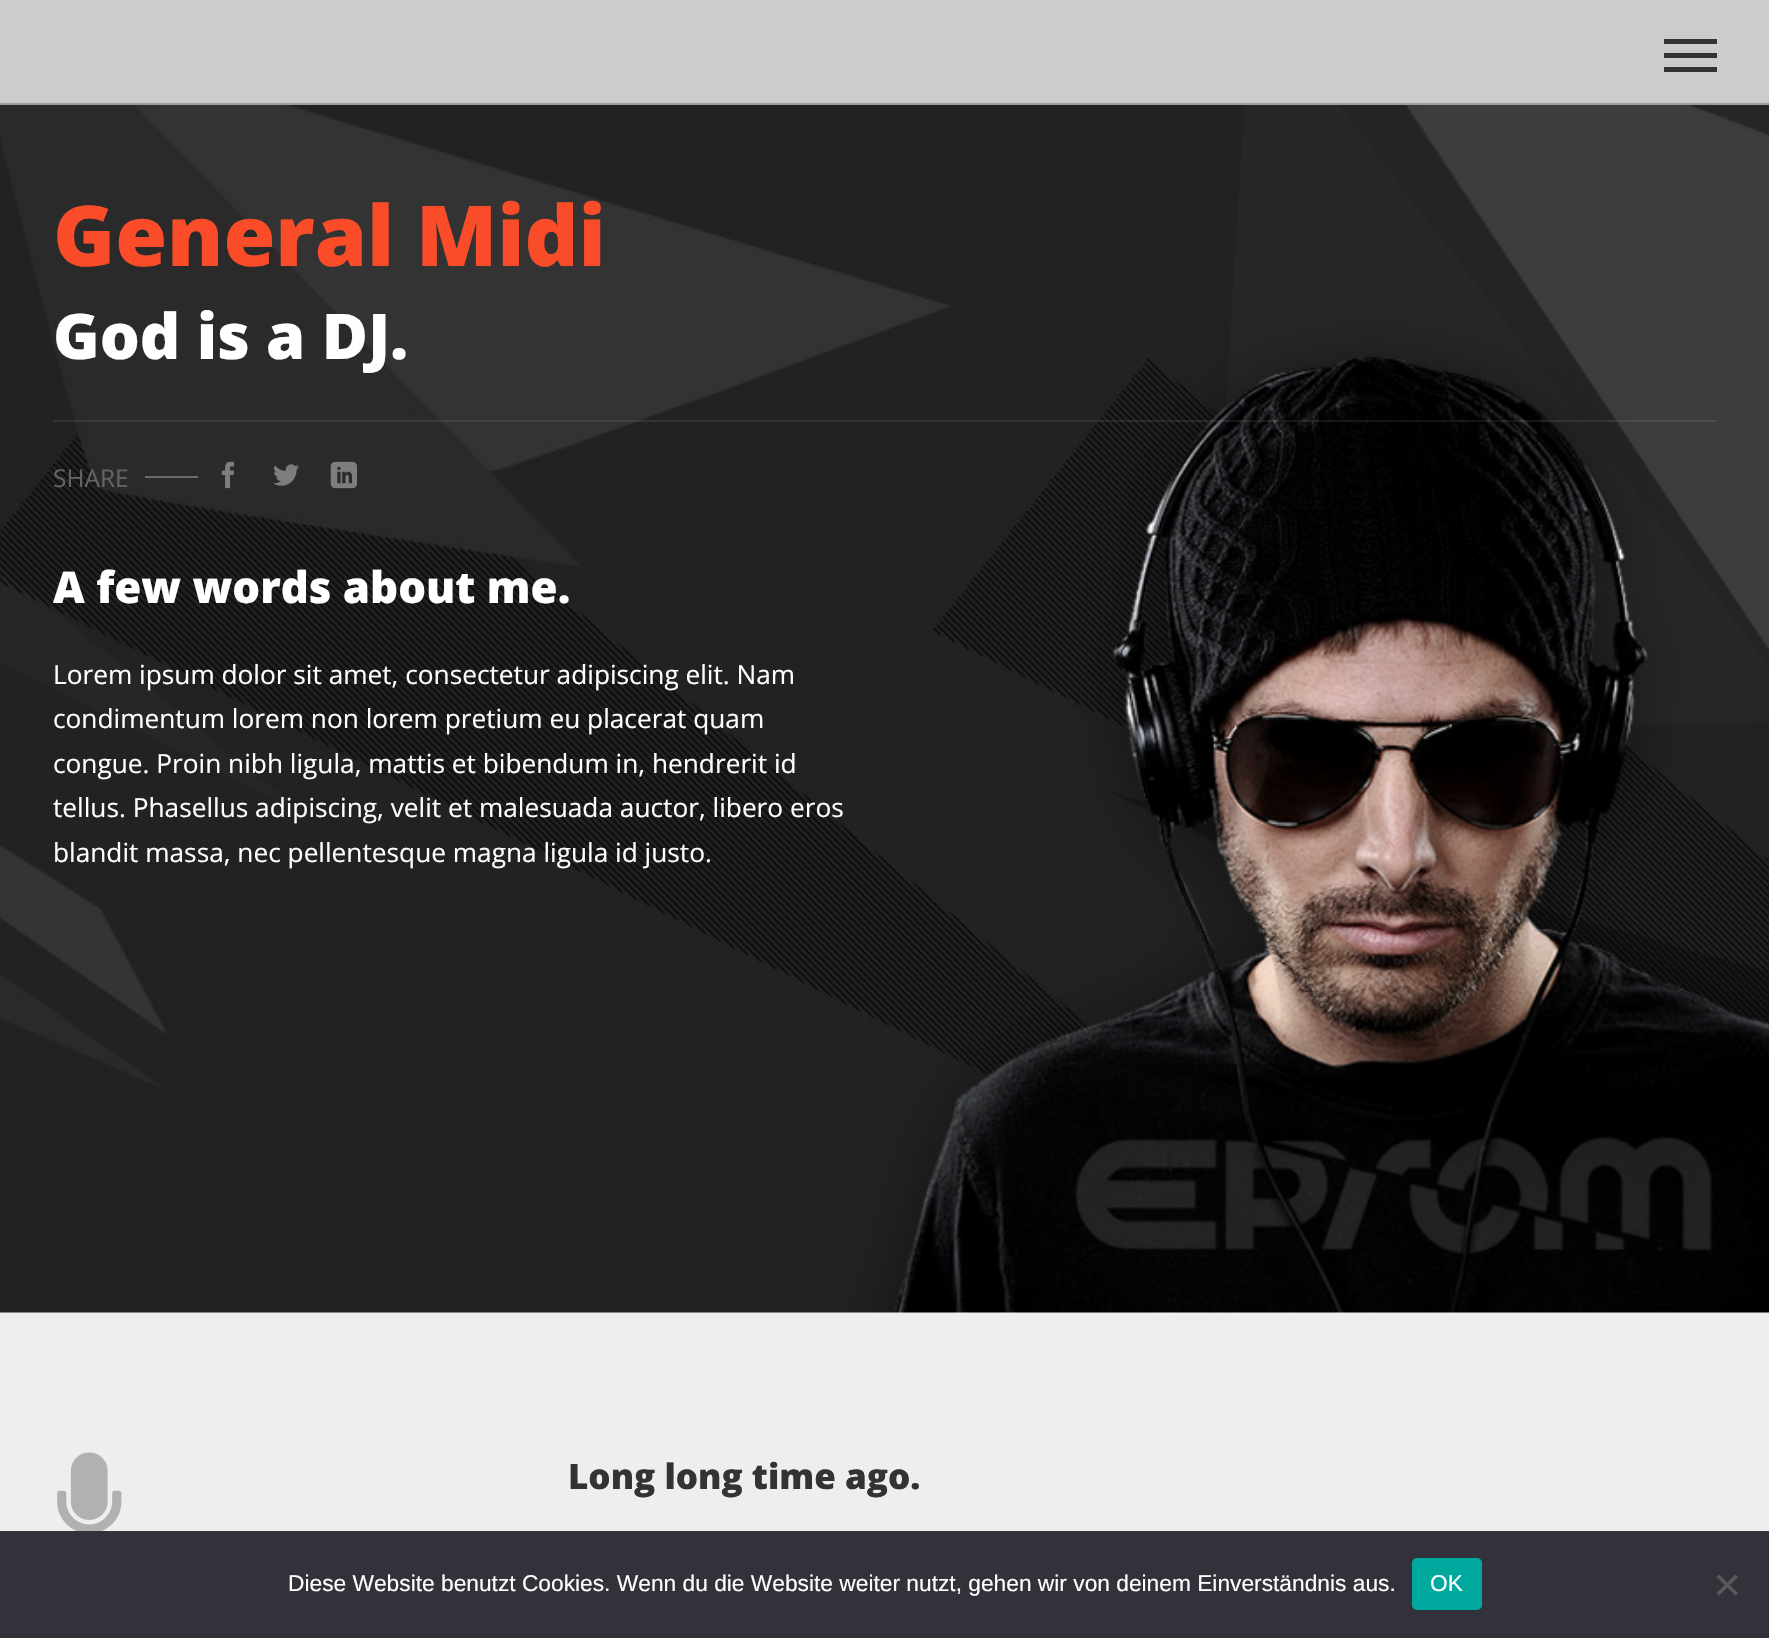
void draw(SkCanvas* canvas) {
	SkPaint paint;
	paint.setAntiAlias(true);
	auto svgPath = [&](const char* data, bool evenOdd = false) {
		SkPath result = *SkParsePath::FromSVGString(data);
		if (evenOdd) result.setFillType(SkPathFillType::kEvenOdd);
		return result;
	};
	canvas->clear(0xffeeeeee);
	paint.setColor(0xffcccccc);
	canvas->drawRect(SkRect::MakeXYWH(0, 0, 1769, 103), paint);
	paint.setColor(0xff9d9d9d);
	canvas->drawRect(SkRect::MakeXYWH(0, 103, 1769, 2), paint);
	paint.setColor(0xff333333);
	canvas->drawRect(SkRect::MakeXYWH(1664, 53, 53, 5), paint);
	canvas->drawRect(SkRect::MakeXYWH(1664, 39, 53, 5), paint);
	canvas->drawRect(SkRect::MakeXYWH(1664, 67, 53, 5), paint);
	canvas->drawImageRect(SkImages::DeferredFromEncodedData(SkData::MakeFromFileName("img1.png")), SkRect::MakeXYWH(0, 105, 1769, 1208), SkSamplingOptions());
	SkFont f1(fontMgr->matchFamilyStyle("Open Sans", SkFontStyle(800, SkFontStyle::kNormal_Width, SkFontStyle::kUpright_Slant)), 84);
	f1.setSubpixel(true);
	paint.setColor(0xfffa4c29);
	canvas->drawString("General Midi", 53, 266, f1, paint);
	SkFont f2(fontMgr->matchFamilyStyle("Open Sans", SkFontStyle(800, SkFontStyle::kNormal_Width, SkFontStyle::kUpright_Slant)), 63);
	f2.setSubpixel(true);
	paint.setColor(0xffffffff);
	canvas->drawString("God is a DJ.", 53, 359, f2, paint);
	paint.setColor(0x14ffffff);
	canvas->drawRect(SkRect::MakeXYWH(53, 420, 1664, 2), paint);
	SkFont f3(fontMgr->matchFamilyStyle("Open Sans", SkFontStyle::Normal()), 24.5);
	f3.setSubpixel(true);
	paint.setColor(0xff646464);
	canvas->drawString("SHARE", 53, 487, f3, paint);
	paint.setColor(0xff6a6a6a);
	canvas->drawRect(SkRect::MakeXYWH(145, 476, 53, 2), paint);
	canvas->drawImageRect(SkImages::DeferredFromEncodedData(SkData::MakeFromFileName("img2.png")), SkRect::MakeXYWH(221, 461, 14, 28), SkSamplingOptions());
	canvas->drawImageRect(SkImages::DeferredFromEncodedData(SkData::MakeFromFileName("img3.png")), SkRect::MakeXYWH(273, 464, 26, 22), SkSamplingOptions());
	canvas->drawImageRect(SkImages::DeferredFromEncodedData(SkData::MakeFromFileName("img4.png")), SkRect::MakeXYWH(330, 461, 27, 28), SkSamplingOptions());
	SkFont f4(fontMgr->matchFamilyStyle("Open Sans", SkFontStyle(800, SkFontStyle::kNormal_Width, SkFontStyle::kUpright_Slant)), 43.75);
	f4.setSubpixel(true);
	paint.setColor(0xffffffff);
	canvas->drawString("A few words about me.", 53, 603, f4, paint);
	SkFont f5(fontMgr->matchFamilyStyle("Open Sans", SkFontStyle::Normal()), 26.25);
	f5.setSubpixel(true);
	canvas->drawString("Lorem ipsum dolor sit amet, consectetur adipiscing elit. Nam", 53, 684, f5, paint);
	canvas->drawString("condimentum lorem non lorem pretium eu placerat quam", 53, 728, f5, paint);
	canvas->drawString("congue. Proin nibh ligula, mattis et bibendum in, hendrerit id", 53, 773, f5, paint);
	canvas->drawString("tellus. Phasellus adipiscing, velit et malesuada auctor, libero eros", 53, 817, f5, paint);
	canvas->drawString("blandit massa, nec pellentesque magna ligula id justo.", 53, 862, f5, paint);
	canvas->drawImageRect(SkImages::DeferredFromEncodedData(SkData::MakeFromFileName("img5.png")), SkRect::MakeXYWH(57, 1452, 65, 79), SkSamplingOptions());
	SkFont f6(fontMgr->matchFamilyStyle("Open Sans", SkFontStyle(800, SkFontStyle::kNormal_Width, SkFontStyle::kUpright_Slant)), 35);
	f6.setSubpixel(true);
	paint.setColor(0xff333333);
	canvas->drawString("Long long time ago.", 568, 1489, f6, paint);
	paint.setColor(0xff32323a);
	canvas->drawRect(SkRect::MakeXYWH(0, 1531, 1769, 107), paint);
	SkFont f7(fontMgr->matchFamilyStyle("Liberation Sans", SkFontStyle::Normal()), 22.75);
	f7.setSubpixel(true);
	paint.setColor(0xffffffff);
	canvas->drawString("Diese Website benutzt Cookies. Wenn du die Website weiter nutzt, gehen wir von deinem Einverständnis aus.", 288, 1591, f7, paint);
	paint.setColor(0xff00a99d);
	canvas->drawRoundRect(SkRect::MakeXYWH(1412, 1558, 70, 52), 5, 5, paint);
	paint.setColor(0xffffffff);
	canvas->drawString("OK", 1430, 1591, f7, paint);
	paint.setColor(0xff59595d);
	canvas->drawPath(svgPath("M1735.5 1574.5L1738 1577L1719 1595.5L1716.5 1593Z"), paint);
	canvas->drawPath(svgPath("M1716.5 1577L1719 1574.5L1738 1593L1735.5 1595.5Z"), paint);
}
